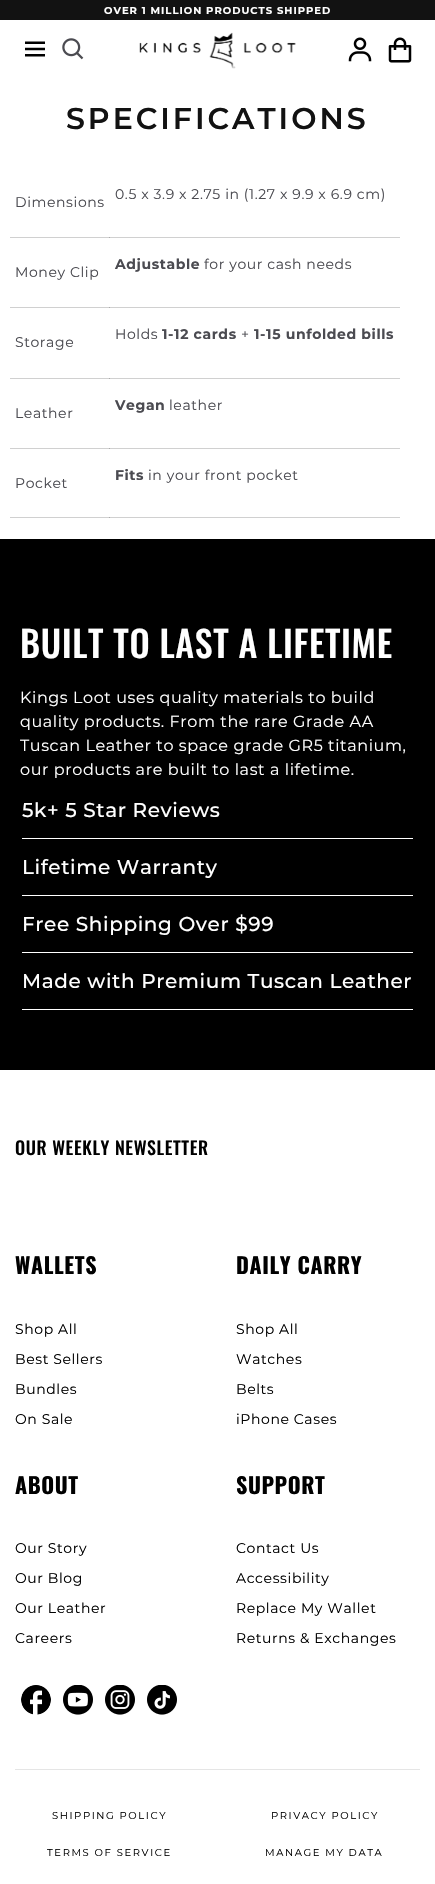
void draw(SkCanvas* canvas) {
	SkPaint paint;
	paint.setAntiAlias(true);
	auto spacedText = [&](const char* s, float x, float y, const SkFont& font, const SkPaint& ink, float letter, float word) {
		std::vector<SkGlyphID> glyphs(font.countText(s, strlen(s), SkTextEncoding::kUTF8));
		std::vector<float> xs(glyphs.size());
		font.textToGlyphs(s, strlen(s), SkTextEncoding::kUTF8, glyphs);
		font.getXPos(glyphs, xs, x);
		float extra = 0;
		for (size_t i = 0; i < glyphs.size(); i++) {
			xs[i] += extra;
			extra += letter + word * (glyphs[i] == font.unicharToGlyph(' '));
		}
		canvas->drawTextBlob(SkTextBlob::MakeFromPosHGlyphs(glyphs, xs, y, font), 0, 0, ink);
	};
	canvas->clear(0xffffffff);
	paint.setColor(0xffd0d0d0);
	canvas->drawRect(SkRect::MakeXYWH(10, 237, 390, 1), paint);
	canvas->drawRect(SkRect::MakeXYWH(10, 307, 390, 1), paint);
	canvas->drawRect(SkRect::MakeXYWH(10, 378, 390, 1), paint);
	canvas->drawRect(SkRect::MakeXYWH(10, 448, 390, 1), paint);
	canvas->drawRect(SkRect::MakeXYWH(10, 517, 390, 1), paint);
	paint.setColor(0xff121212);
	canvas->drawRect(SkRect::MakeXYWH(0, 0, 435, 20), paint);
	SkFont f1(fontMgr->matchFamilyStyle("Montserrat", SkFontStyle::Bold()), 10);
	f1.setSubpixel(true);
	paint.setColor(0xffffffff);
	spacedText("OVER 1 MILLION PRODUCTS SHIPPED", 104, 14, f1, paint, 1, 0);
	canvas->drawImageRect(SkImages::DeferredFromEncodedData(SkData::MakeFromFileName("img1.png")), SkRect::MakeXYWH(25, 41, 20, 16), SkSamplingOptions());
	canvas->drawImageRect(SkImages::DeferredFromEncodedData(SkData::MakeFromFileName("img2.png")), SkRect::MakeXYWH(62, 38, 22, 22), SkSamplingOptions());
	canvas->drawImageRect(SkImages::DeferredFromEncodedData(SkData::MakeFromFileName("img3.png")), SkRect::MakeXYWH(139, 32, 157, 37), SkSamplingOptions());
	canvas->drawImageRect(SkImages::DeferredFromEncodedData(SkData::MakeFromFileName("img4.png")), SkRect::MakeXYWH(348, 37, 24, 25), SkSamplingOptions());
	canvas->drawImageRect(SkImages::DeferredFromEncodedData(SkData::MakeFromFileName("img5.png")), SkRect::MakeXYWH(388, 37, 24, 26), SkSamplingOptions());
	SkFont f2(fontMgr->matchFamilyStyle("Montserrat", SkFontStyle(600, SkFontStyle::kNormal_Width, SkFontStyle::kUpright_Slant)), 30);
	f2.setSubpixel(true);
	paint.setColor(0xff121212);
	spacedText("SPECIFICATIONS", 66, 129, f2, paint, 3, 0);
	SkFont f3(fontMgr->matchFamilyStyle("Montserrat", SkFontStyle::Normal()), 14);
	f3.setSubpixel(true);
	paint.setColor(0xff4b4b51);
	spacedText("Dimensions", 15, 207, f3, paint, 0.6, 0);
	paint.setColor(0xffaaaaaa);
	canvas->drawRect(SkRect::MakeXYWH(109, 237, 1, 1), paint);
	paint.setColor(0xff4b4b51);
	spacedText("0.5 x 3.9 x 2.75 in (1.27 x 9.9 x 6.9 cm)", 115, 199, f3, paint, 0.6, 0);
	spacedText("Money Clip", 15, 277, f3, paint, 0.6, 0);
	paint.setColor(0xffaaaaaa);
	canvas->drawRect(SkRect::MakeXYWH(109, 307, 1, 1), paint);
	SkFont f4(fontMgr->matchFamilyStyle("Montserrat", SkFontStyle::Bold()), 14);
	f4.setSubpixel(true);
	paint.setColor(0xff4b4b51);
	spacedText("Adjustable", 115, 269, f4, paint, 0.6, 0);
	spacedText("for your cash needs", 204, 269, f3, paint, 0.6, 0);
	paint.setColor(0xffaaaaaa);
	canvas->drawRect(SkRect::MakeXYWH(109, 378, 1, 1), paint);
	paint.setColor(0xff4b4b51);
	spacedText("Holds", 115, 339, f3, paint, 0.6, 0);
	spacedText("1-12 cards", 162, 339, f4, paint, 0.6, 0);
	spacedText("+", 241, 339, f3, paint, 0.6, 0);
	spacedText("1-15 unfolded bills", 254, 339, f4, paint, 0.6, 0);
	spacedText("Storage", 15, 347, f3, paint, 0.6, 0);
	spacedText("Leather", 15, 418, f3, paint, 0.6, 0);
	paint.setColor(0xffaaaaaa);
	canvas->drawRect(SkRect::MakeXYWH(109, 448, 1, 1), paint);
	paint.setColor(0xff4b4b51);
	spacedText("Vegan", 115, 410, f4, paint, 0.6, 0);
	spacedText("leather", 169, 410, f3, paint, 0.6, 0);
	spacedText("Pocket", 15, 488, f3, paint, 0.6, 0);
	paint.setColor(0xffaaaaaa);
	canvas->drawRect(SkRect::MakeXYWH(109, 517, 1, 1), paint);
	paint.setColor(0xff4b4b51);
	spacedText("Fits", 115, 480, f4, paint, 0.6, 0);
	spacedText("in your front pocket", 148, 480, f3, paint, 0.6, 0);
	paint.setColor(0xff000000);
	canvas->drawRect(SkRect::MakeXYWH(0, 539, 435, 531), paint);
	SkFont f5(fontMgr->matchFamilyStyle("Oswald", SkFontStyle(500, SkFontStyle::kNormal_Width, SkFontStyle::kUpright_Slant)), 36);
	f5.setSubpixel(true);
	paint.setColor(0xffffffff);
	spacedText("BUILT TO LAST A LIFETIME", 20, 658, f5, paint, 0.6, 0);
	SkFont f6(fontMgr->matchFamilyStyle("Montserrat", SkFontStyle::Normal()), 16);
	f6.setSubpixel(true);
	spacedText("Kings Loot uses quality materials to build", 20, 703, f6, paint, 0.6, 0);
	spacedText("quality products. From the rare Grade AA", 20, 727, f6, paint, 0.6, 0);
	spacedText("Tuscan Leather to space grade GR5 titanium,", 20, 751, f6, paint, 0.6, 0);
	spacedText("our products are built to last a lifetime.", 20, 775, f6, paint, 0.6, 0);
	canvas->drawRect(SkRect::MakeXYWH(22, 838, 391, 1), paint);
	SkFont f7(fontMgr->matchFamilyStyle("Montserrat", SkFontStyle(500, SkFontStyle::kNormal_Width, SkFontStyle::kUpright_Slant)), 20);
	f7.setSubpixel(true);
	spacedText("5k+ 5 Star Reviews", 22, 817, f7, paint, 0.6, 0);
	canvas->drawRect(SkRect::MakeXYWH(22, 895, 391, 1), paint);
	spacedText("Lifetime Warranty", 22, 874, f7, paint, 0.6, 0);
	canvas->drawRect(SkRect::MakeXYWH(22, 952, 391, 1), paint);
	spacedText("Free Shipping Over $99", 22, 931, f7, paint, 0.6, 0);
	canvas->drawRect(SkRect::MakeXYWH(22, 1009, 391, 1), paint);
	spacedText("Made with Premium Tuscan Leather", 22, 988, f7, paint, 0.6, 0);
	SkFont f8(fontMgr->matchFamilyStyle("Oswald", SkFontStyle(500, SkFontStyle::kNormal_Width, SkFontStyle::kUpright_Slant)), 18);
	f8.setSubpixel(true);
	paint.setColor(0xff000000);
	spacedText("OUR WEEKLY NEWSLETTER", 15, 1155, f8, paint, 0.6, 0);
	SkFont f9(fontMgr->matchFamilyStyle("Oswald", SkFontStyle::Bold()), 22);
	f9.setSubpixel(true);
	spacedText("WALLETS", 15, 1274, f9, paint, 0.6, 0);
	spacedText("Shop All", 15, 1334, f3, paint, 0.6, 0);
	spacedText("Best Sellers", 15, 1364, f3, paint, 0.6, 0);
	spacedText("Bundles", 15, 1394, f3, paint, 0.6, 0);
	spacedText("On Sale", 15, 1424, f3, paint, 0.6, 0);
	spacedText("DAILY CARRY", 236, 1274, f9, paint, 0.6, 0);
	spacedText("Shop All", 236, 1334, f3, paint, 0.6, 0);
	spacedText("Watches", 236, 1364, f3, paint, 0.6, 0);
	spacedText("Belts", 236, 1394, f3, paint, 0.6, 0);
	spacedText("iPhone Cases", 236, 1424, f3, paint, 0.6, 0);
	spacedText("ABOUT", 15, 1494, f9, paint, 0.6, 0);
	spacedText("Our Story", 15, 1553, f3, paint, 0.6, 0);
	spacedText("Our Blog", 15, 1583, f3, paint, 0.6, 0);
	spacedText("Our Leather", 15, 1613, f3, paint, 0.6, 0);
	spacedText("Careers", 15, 1643, f3, paint, 0.6, 0);
	spacedText("SUPPORT", 236, 1494, f9, paint, 0.6, 0);
	spacedText("Contact Us", 236, 1553, f3, paint, 0.6, 0);
	spacedText("Accessibility", 236, 1583, f3, paint, 0.6, 0);
	spacedText("Replace My Wallet", 236, 1613, f3, paint, 0.6, 0);
	spacedText("Returns & Exchanges", 236, 1643, f3, paint, 0.6, 0);
	canvas->drawImageRect(SkImages::DeferredFromEncodedData(SkData::MakeFromFileName("img6.png")), SkRect::MakeXYWH(21, 1685, 30, 30), SkSamplingOptions());
	canvas->drawImageRect(SkImages::DeferredFromEncodedData(SkData::MakeFromFileName("img7.png")), SkRect::MakeXYWH(63, 1685, 30, 30), SkSamplingOptions());
	canvas->drawImageRect(SkImages::DeferredFromEncodedData(SkData::MakeFromFileName("img8.png")), SkRect::MakeXYWH(105, 1685, 30, 30), SkSamplingOptions());
	canvas->drawImageRect(SkImages::DeferredFromEncodedData(SkData::MakeFromFileName("img9.png")), SkRect::MakeXYWH(147, 1685, 30, 30), SkSamplingOptions());
	paint.setColor(0xffe5e5e5);
	canvas->drawRect(SkRect::MakeXYWH(15, 1769, 405, 1), paint);
	SkFont f10(fontMgr->matchFamilyStyle("Montserrat", SkFontStyle::Normal()), 10);
	f10.setSubpixel(true);
	paint.setColor(0xff000000);
	spacedText("SHIPPING POLICY", 52, 1819, f10, paint, 1.6, 0);
	spacedText("PRIVACY POLICY", 271, 1819, f10, paint, 1.6, 0);
	spacedText("TERMS OF SERVICE", 47, 1856, f10, paint, 1.6, 0);
	spacedText("MANAGE MY DATA", 265, 1856, f10, paint, 1.6, 0);
}
